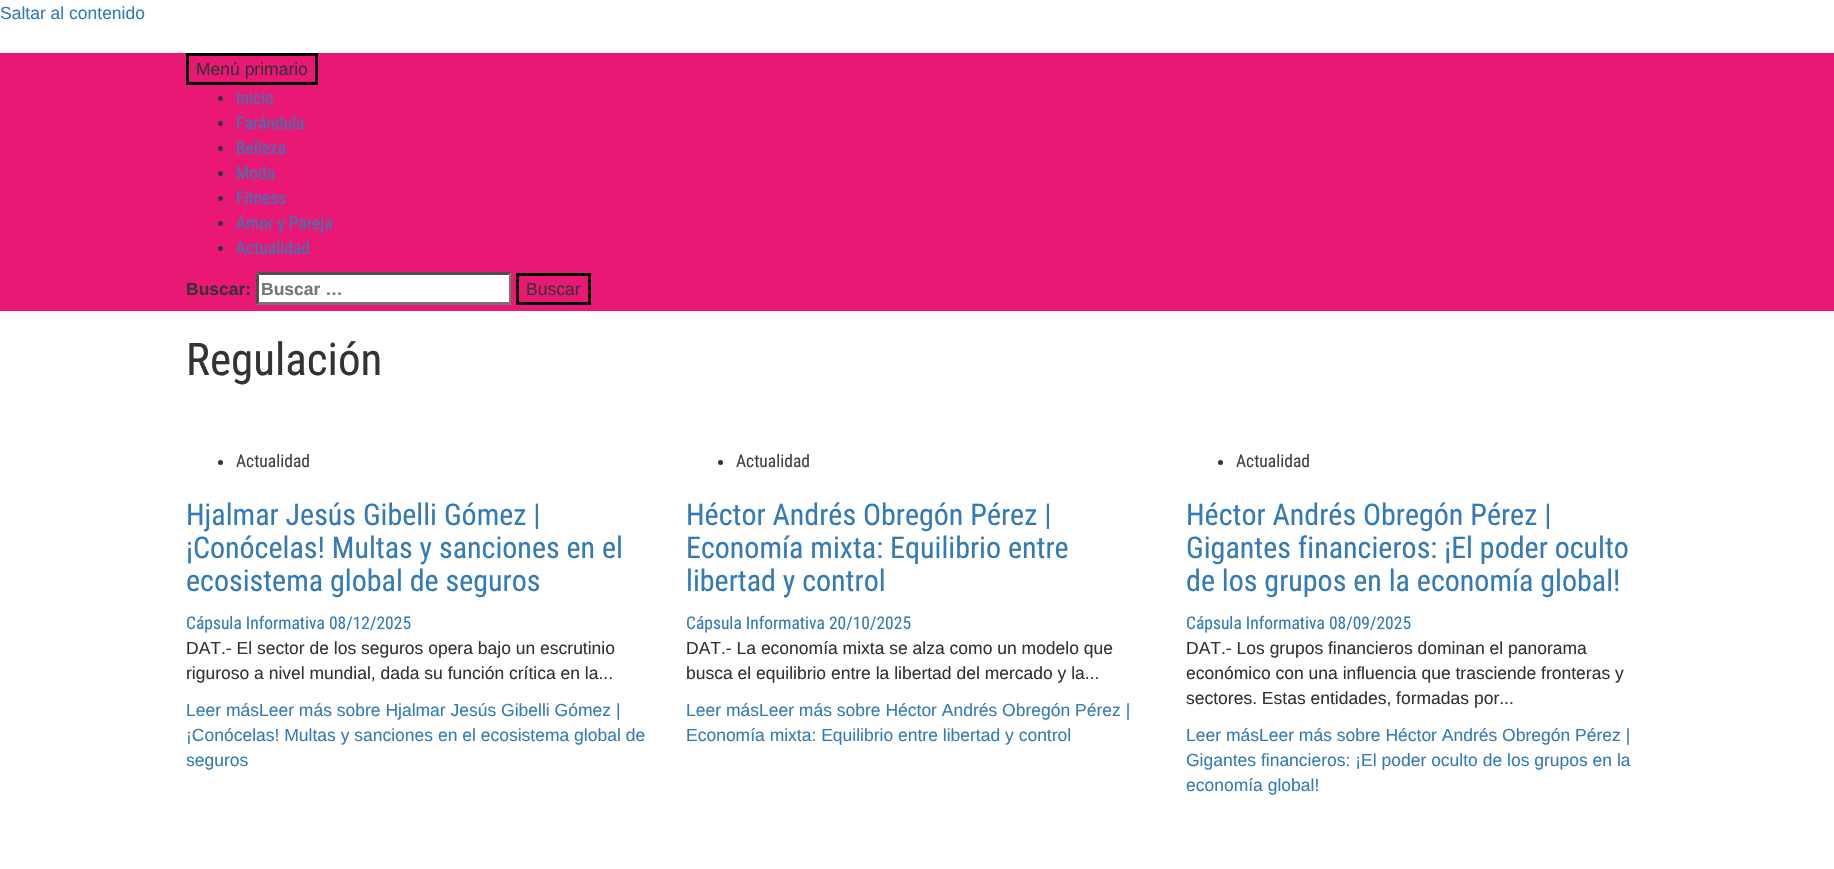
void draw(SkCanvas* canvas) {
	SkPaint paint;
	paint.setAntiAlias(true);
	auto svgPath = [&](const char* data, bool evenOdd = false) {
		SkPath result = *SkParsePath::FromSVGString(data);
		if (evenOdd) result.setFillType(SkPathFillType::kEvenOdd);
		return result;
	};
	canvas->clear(0xffffffff);
	SkFont f1(fontMgr->matchFamilyStyle("Liberation Sans", SkFontStyle::Normal()), 17.5);
	f1.setSubpixel(true);
	paint.setColor(0xff337ab7);
	canvas->drawString("Saltar al contenido", 0, 19, f1, paint);
	paint.setColor(0xffea1875);
	canvas->drawRect(SkRect::MakeXYWH(0, 53, 1834, 258), paint);
	paint.setStroke(true);
	paint.setStrokeWidth(3);
	paint.setColor(0xff000000);
	canvas->drawRect(SkRect::MakeXYWH(187.5, 54.5, 129, 29), paint);
	paint.setStroke(false);
	paint.setColor(0xff333333);
	canvas->drawString("Menú primario", 196, 75, f1, paint);
	canvas->drawCircle(220.5, 98.5, 2.5, paint);
	SkFont f2(fontMgr->matchFamilyStyle("Roboto Condensed", SkFontStyle::Normal()), 17.5);
	f2.setSubpixel(true);
	paint.setColor(0xff337ab7);
	canvas->drawString("Inicio", 236, 104, f2, paint);
	paint.setColor(0xff333333);
	canvas->drawCircle(220.5, 123.5, 2.5, paint);
	paint.setColor(0xff337ab7);
	canvas->drawString("Farándula", 236, 129, f2, paint);
	paint.setColor(0xff333333);
	canvas->drawCircle(220.5, 148.5, 2.5, paint);
	paint.setColor(0xff337ab7);
	canvas->drawString("Belleza", 236, 154, f2, paint);
	paint.setColor(0xff333333);
	canvas->drawCircle(220.5, 173.5, 2.5, paint);
	paint.setColor(0xff337ab7);
	canvas->drawString("Moda", 236, 179, f2, paint);
	paint.setColor(0xff333333);
	canvas->drawCircle(220.5, 198.5, 2.5, paint);
	paint.setColor(0xff337ab7);
	canvas->drawString("Fitness", 236, 204, f2, paint);
	paint.setColor(0xff333333);
	canvas->drawCircle(220.5, 223.5, 2.5, paint);
	paint.setColor(0xff337ab7);
	canvas->drawString("Amor y Pareja", 236, 229, f2, paint);
	paint.setColor(0xff333333);
	canvas->drawCircle(220.5, 248.5, 2.5, paint);
	paint.setColor(0xff337ab7);
	canvas->drawString("Actualidad", 236, 254, f2, paint);
	SkFont f3(fontMgr->matchFamilyStyle("Liberation Sans", SkFontStyle::Bold()), 17.5);
	f3.setSubpixel(true);
	paint.setColor(0xff333333);
	canvas->drawString("Buscar:", 186, 295, f3, paint);
	paint.setColor(0xffffffff);
	canvas->drawRect(SkRect::MakeXYWH(256, 273, 255, 32), paint);
	paint.setColor(0xff4f4f4f);
	canvas->drawPath(svgPath("M256 272H511L509 275H259Z"), paint);
	paint.setColor(0xff767676);
	canvas->drawPath(svgPath("M511 272.5V305L509 302.5V275Z"), paint);
	canvas->drawPath(svgPath("M511 305H256L259 302H509Z"), paint);
	paint.setColor(0xff4f4f4f);
	canvas->drawPath(svgPath("M256 305V272.5L259 275V302.5Z"), paint);
	paint.setColor(0xff757575);
	canvas->drawString("Buscar …", 261, 295, f3, paint);
	paint.setStroke(true);
	paint.setColor(0xff000000);
	canvas->drawRect(SkRect::MakeXYWH(517.5, 274.5, 72, 29), paint);
	paint.setStroke(false);
	paint.setColor(0xff333333);
	canvas->drawString("Buscar", 526, 295, f1, paint);
	SkFont f4(fontMgr->matchFamilyStyle("Roboto Condensed", SkFontStyle::Normal()), 45);
	f4.setSubpixel(true);
	canvas->drawString("Regulación", 186, 375, f4, paint);
	canvas->drawCircle(220.5, 462.5, 2.5, paint);
	paint.setColor(0xff404040);
	canvas->drawString("Actualidad", 236, 467, f2, paint);
	SkFont f5(fontMgr->matchFamilyStyle("Roboto Condensed", SkFontStyle::Normal()), 30);
	f5.setSubpixel(true);
	paint.setColor(0xff337ab7);
	canvas->drawString("Hjalmar Jesús Gibelli Gómez |", 186, 525, f5, paint);
	canvas->drawString("¡Conócelas! Multas y sanciones en el", 186, 558, f5, paint);
	canvas->drawString("ecosistema global de seguros", 186, 591, f5, paint);
	canvas->drawString("Cápsula Informativa 08/12/2025", 186, 629, f2, paint);
	paint.setColor(0xff333333);
	canvas->drawString("DAT.- El sector de los seguros opera bajo un escrutinio", 186, 654, f1, paint);
	canvas->drawString("riguroso a nivel mundial, dada su función crítica en la...", 186, 679, f1, paint);
	paint.setColor(0xff337ab7);
	canvas->drawString("Leer másLeer más sobre Hjalmar Jesús Gibelli Gómez |", 186, 716, f1, paint);
	canvas->drawString("¡Conócelas! Multas y sanciones en el ecosistema global de", 186, 741, f1, paint);
	canvas->drawString("seguros", 186, 766, f1, paint);
	paint.setColor(0xff333333);
	canvas->drawCircle(720.5, 462.5, 2.5, paint);
	paint.setColor(0xff404040);
	canvas->drawString("Actualidad", 736, 467, f2, paint);
	paint.setColor(0xff337ab7);
	canvas->drawString("Héctor Andrés Obregón Pérez |", 686, 525, f5, paint);
	canvas->drawString("Economía mixta: Equilibrio entre", 686, 558, f5, paint);
	canvas->drawString("libertad y control", 686, 591, f5, paint);
	canvas->drawString("Cápsula Informativa 20/10/2025", 686, 629, f2, paint);
	paint.setColor(0xff333333);
	canvas->drawString("DAT.- La economía mixta se alza como un modelo que", 686, 654, f1, paint);
	canvas->drawString("busca el equilibrio entre la libertad del mercado y la...", 686, 679, f1, paint);
	paint.setColor(0xff337ab7);
	canvas->drawString("Leer másLeer más sobre Héctor Andrés Obregón Pérez |", 686, 716, f1, paint);
	canvas->drawString("Economía mixta: Equilibrio entre libertad y control", 686, 741, f1, paint);
	paint.setColor(0xff333333);
	canvas->drawCircle(1220.5, 462.5, 2.5, paint);
	paint.setColor(0xff404040);
	canvas->drawString("Actualidad", 1236, 467, f2, paint);
	paint.setColor(0xff337ab7);
	canvas->drawString("Héctor Andrés Obregón Pérez |", 1186, 525, f5, paint);
	canvas->drawString("Gigantes financieros: ¡El poder oculto", 1186, 558, f5, paint);
	canvas->drawString("de los grupos en la economía global!", 1186, 591, f5, paint);
	canvas->drawString("Cápsula Informativa 08/09/2025", 1186, 629, f2, paint);
	paint.setColor(0xff333333);
	canvas->drawString("DAT.- Los grupos financieros dominan el panorama", 1186, 654, f1, paint);
	canvas->drawString("económico con una influencia que trasciende fronteras y", 1186, 679, f1, paint);
	canvas->drawString("sectores. Estas entidades, formadas por...", 1186, 704, f1, paint);
	paint.setColor(0xff337ab7);
	canvas->drawString("Leer másLeer más sobre Héctor Andrés Obregón Pérez |", 1186, 741, f1, paint);
	canvas->drawString("Gigantes financieros: ¡El poder oculto de los grupos en la", 1186, 766, f1, paint);
	canvas->drawString("economía global!", 1186, 791, f1, paint);
}
